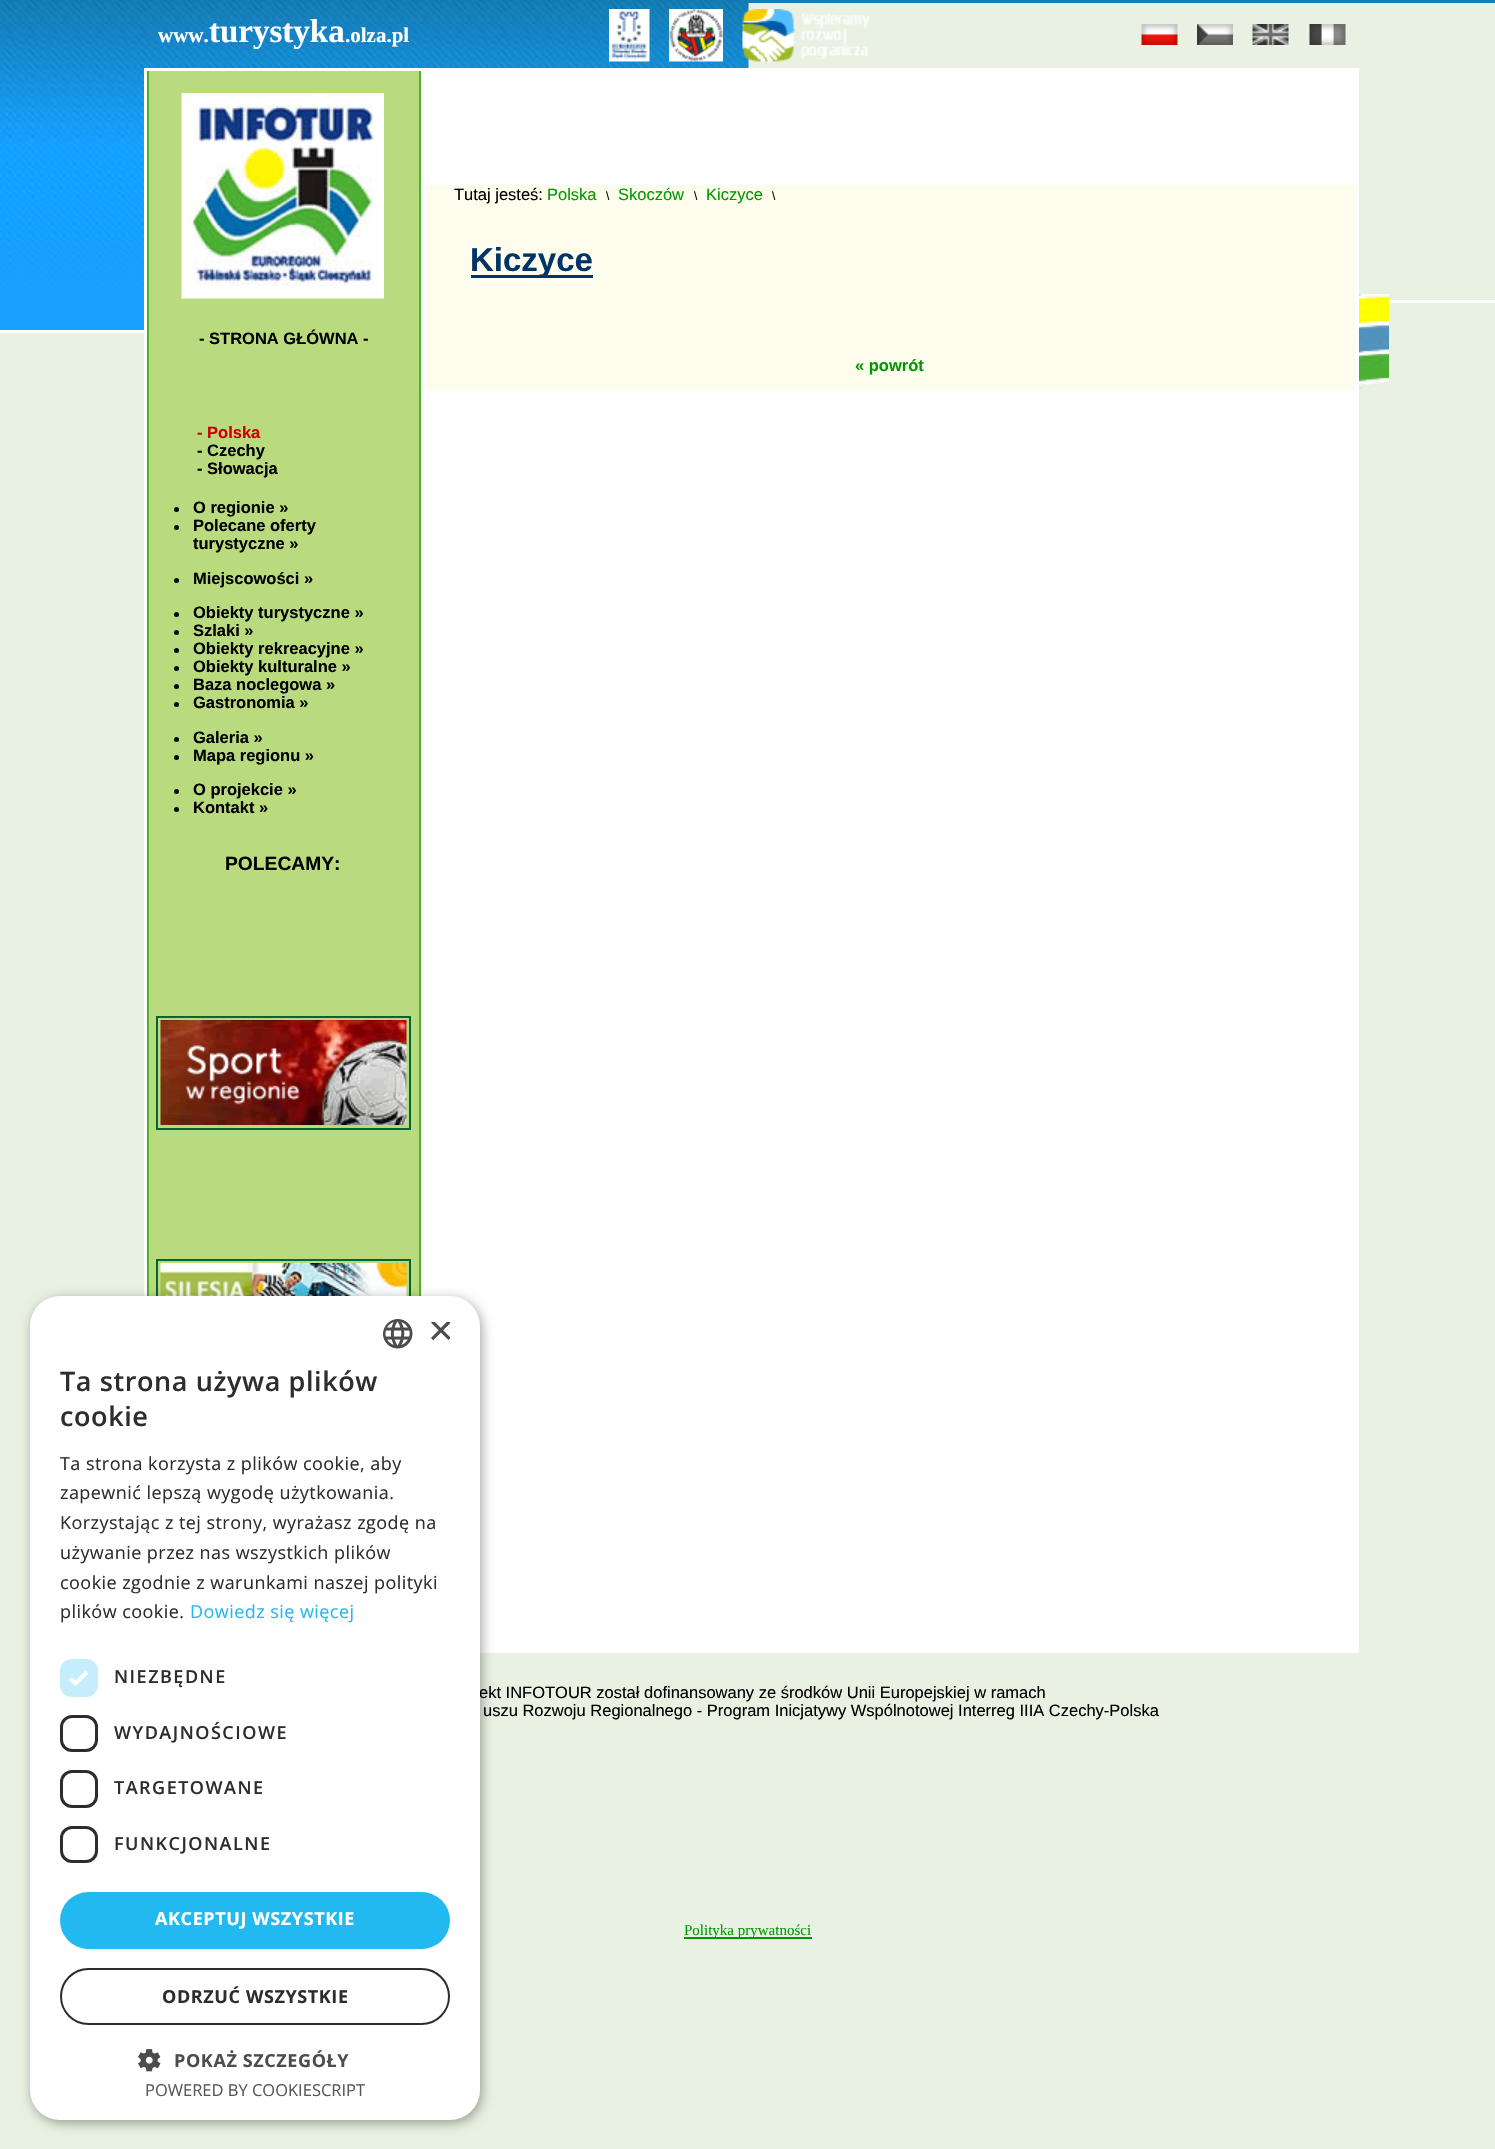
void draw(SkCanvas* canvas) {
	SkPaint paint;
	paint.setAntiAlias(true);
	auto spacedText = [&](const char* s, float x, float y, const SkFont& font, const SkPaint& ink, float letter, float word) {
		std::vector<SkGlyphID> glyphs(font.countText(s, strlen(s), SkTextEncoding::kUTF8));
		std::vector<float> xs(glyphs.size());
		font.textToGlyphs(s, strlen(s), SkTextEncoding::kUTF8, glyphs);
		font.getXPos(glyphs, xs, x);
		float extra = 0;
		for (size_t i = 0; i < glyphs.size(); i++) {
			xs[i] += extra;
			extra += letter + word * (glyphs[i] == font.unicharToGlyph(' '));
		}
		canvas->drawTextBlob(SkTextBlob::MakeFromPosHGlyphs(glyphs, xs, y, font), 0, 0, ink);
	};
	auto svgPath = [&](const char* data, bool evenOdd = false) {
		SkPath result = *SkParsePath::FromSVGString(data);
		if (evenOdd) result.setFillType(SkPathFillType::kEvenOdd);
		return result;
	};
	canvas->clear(0xffe8f1e2);
	paint.setColor(0xff197cb2);
	canvas->drawRect(SkRect::MakeXYWH(748, 0, 747, 3), paint);
	canvas->drawImageRect(SkImages::DeferredFromEncodedData(SkData::MakeFromFileName("img1.png")), SkRect::MakeXYWH(0, 0, 749, 330), SkSamplingOptions());
	paint.setColor(0xffffffff);
	canvas->drawRect(SkRect::MakeXYWH(0, 330, 144, 3), paint);
	SkFont f1(fontMgr->matchFamilyStyle("Liberation Serif", SkFontStyle::Bold()), 21);
	f1.setSubpixel(true);
	canvas->drawString("www.", 158, 42, f1, paint);
	SkFont f2(fontMgr->matchFamilyStyle("Liberation Serif", SkFontStyle::Bold()), 33);
	f2.setSubpixel(true);
	canvas->drawString("turystyka", 209, 42, f2, paint);
	canvas->drawString(".olza.pl", 345, 42, f1, paint);
	canvas->drawImageRect(SkImages::DeferredFromEncodedData(SkData::MakeFromFileName("img2.png")), SkRect::MakeXYWH(609, 9, 41, 53), SkSamplingOptions());
	canvas->drawImageRect(SkImages::DeferredFromEncodedData(SkData::MakeFromFileName("img3.png")), SkRect::MakeXYWH(669, 9, 54, 53), SkSamplingOptions());
	canvas->drawImageRect(SkImages::DeferredFromEncodedData(SkData::MakeFromFileName("img4.png")), SkRect::MakeXYWH(742, 9, 128, 53), SkSamplingOptions());
	canvas->drawImageRect(SkImages::DeferredFromEncodedData(SkData::MakeFromFileName("img5.png")), SkRect::MakeXYWH(1141, 24, 37, 21), SkSamplingOptions());
	canvas->drawImageRect(SkImages::DeferredFromEncodedData(SkData::MakeFromFileName("img6.png")), SkRect::MakeXYWH(1197, 24, 36, 21), SkSamplingOptions());
	canvas->drawImageRect(SkImages::DeferredFromEncodedData(SkData::MakeFromFileName("img7.png")), SkRect::MakeXYWH(1252, 24, 37, 21), SkSamplingOptions());
	canvas->drawImageRect(SkImages::DeferredFromEncodedData(SkData::MakeFromFileName("img8.png")), SkRect::MakeXYWH(1309, 24, 37, 21), SkSamplingOptions());
	canvas->drawRect(SkRect::MakeXYWH(144, 68, 1215, 1585), paint);
	paint.setColor(0xfffefded);
	canvas->drawRect(SkRect::MakeXYWH(425, 185, 931, 205), paint);
	SkFont f3(fontMgr->matchFamilyStyle("Liberation Sans", SkFontStyle::Normal()), 16.5);
	f3.setSubpixel(true);
	paint.setColor(0xff000000);
	canvas->drawString("Tutaj jesteś:", 454, 200, f3, paint);
	paint.setColor(0xff009900);
	canvas->drawString("Polska", 547, 200, f3, paint);
	SkFont f4(fontMgr->matchFamilyStyle("Liberation Sans", SkFontStyle::Normal()), 12);
	f4.setSubpixel(true);
	paint.setColor(0xff000000);
	canvas->drawString("\\", 606, 200, f4, paint);
	paint.setColor(0xff009900);
	canvas->drawString("Skoczów", 618, 200, f3, paint);
	paint.setColor(0xff000000);
	canvas->drawString("\\", 694, 200, f4, paint);
	paint.setColor(0xff009900);
	canvas->drawString("Kiczyce", 706, 200, f3, paint);
	paint.setColor(0xff000000);
	canvas->drawString("\\", 772, 200, f4, paint);
	paint.setColor(0xff003366);
	canvas->drawRect(SkRect::MakeXYWH(471, 275, 122, 3), paint);
	SkFont f5(fontMgr->matchFamilyStyle("Liberation Sans", SkFontStyle::Bold()), 33);
	f5.setSubpixel(true);
	canvas->drawString("Kiczyce", 470, 271, f5, paint);
	SkFont f6(fontMgr->matchFamilyStyle("Liberation Sans", SkFontStyle::Bold()), 16.5);
	f6.setSubpixel(true);
	paint.setColor(0xff009900);
	canvas->drawString("« powrót", 855, 371, f6, paint);
	paint.setColor(0xffb9db7d);
	canvas->drawRect(SkRect::MakeXYWH(149, 71, 270, 1225), paint);
	paint.setColor(0xff4cb034);
	canvas->drawRect(SkRect::MakeXYWH(419, 71, 2, 1225), paint);
	canvas->drawRect(SkRect::MakeXYWH(147, 71, 2, 1225), paint);
	canvas->drawImageRect(SkImages::DeferredFromEncodedData(SkData::MakeFromFileName("img9.png")), SkRect::MakeXYWH(181, 93, 203, 206), SkSamplingOptions());
	paint.setColor(0xff000000);
	canvas->drawString("- STRONA GŁÓWNA -", 199, 344, f6, paint);
	paint.setColor(0xffcc0000);
	canvas->drawString("- Polska", 197, 438, f6, paint);
	paint.setColor(0xff000000);
	canvas->drawString("- Czechy", 197, 456, f6, paint);
	canvas->drawString("- Słowacja", 197, 474, f6, paint);
	canvas->drawCircle(176.5, 509.5, 2.5, paint);
	canvas->drawString("O regionie »", 193, 513, f6, paint);
	canvas->drawCircle(176.5, 527.5, 2.5, paint);
	canvas->drawString("Polecane oferty", 193, 531, f6, paint);
	canvas->drawString("turystyczne »", 193, 549, f6, paint);
	canvas->drawCircle(176.5, 580.5, 2.5, paint);
	canvas->drawString("Miejscowości »", 193, 584, f6, paint);
	canvas->drawCircle(176.5, 614.5, 2.5, paint);
	canvas->drawString("Obiekty turystyczne »", 193, 618, f6, paint);
	canvas->drawCircle(176.5, 632.5, 2.5, paint);
	canvas->drawString("Szlaki »", 193, 636, f6, paint);
	canvas->drawCircle(176.5, 650.5, 2.5, paint);
	canvas->drawString("Obiekty rekreacyjne »", 193, 654, f6, paint);
	canvas->drawCircle(176.5, 668.5, 2.5, paint);
	canvas->drawString("Obiekty kulturalne »", 193, 672, f6, paint);
	canvas->drawCircle(176.5, 686.5, 2.5, paint);
	canvas->drawString("Baza noclegowa »", 193, 690, f6, paint);
	canvas->drawCircle(176.5, 704.5, 2.5, paint);
	canvas->drawString("Gastronomia »", 193, 708, f6, paint);
	canvas->drawCircle(176.5, 739.5, 2.5, paint);
	canvas->drawString("Galeria »", 193, 743, f6, paint);
	canvas->drawCircle(176.5, 757.5, 2.5, paint);
	canvas->drawString("Mapa regionu »", 193, 761, f6, paint);
	canvas->drawCircle(176.5, 791.5, 2.5, paint);
	canvas->drawString("O projekcie »", 193, 795, f6, paint);
	canvas->drawCircle(176.5, 809.5, 2.5, paint);
	canvas->drawString("Kontakt »", 193, 813, f6, paint);
	SkFont f7(fontMgr->matchFamilyStyle("Liberation Sans", SkFontStyle::Bold()), 19.25);
	f7.setSubpixel(true);
	canvas->drawString("POLECAMY:", 225, 870, f7, paint);
	paint.setStroke(true);
	paint.setStrokeWidth(2);
	paint.setColor(0xff006633);
	canvas->drawRect(SkRect::MakeXYWH(157, 1017, 253, 112), paint);
	canvas->drawImageRect(SkImages::DeferredFromEncodedData(SkData::MakeFromFileName("img10.png")), SkRect::MakeXYWH(160, 1020, 247, 105), SkSamplingOptions());
	canvas->drawRect(SkRect::MakeXYWH(157, 1260, 253, 112), paint);
	canvas->drawImageRect(SkImages::DeferredFromEncodedData(SkData::MakeFromFileName("img11.png")), SkRect::MakeXYWH(160, 1263, 247, 33), SkSamplingOptions());
	paint.setStroke(false);
	paint.setColor(0xff000000);
	canvas->drawString("ekt INFOTOUR został dofinansowany ze środków Unii Europejskiej w ramach", 479, 1698, f3, paint);
	canvas->drawString("uszu Rozwoju Regionalnego - Program Inicjatywy Wspólnotowej Interreg IIIA Czechy-Polska", 483, 1716, f3, paint);
	canvas->drawImageRect(SkImages::DeferredFromEncodedData(SkData::MakeFromFileName("img12.png")), SkRect::MakeXYWH(1359, 294, 30, 95), SkSamplingOptions());
	paint.setColor(0xffffffff);
	canvas->drawRect(SkRect::MakeXYWH(1389, 300, 106, 3), paint);
	paint.setColor(0xff009900);
	canvas->drawRect(SkRect::MakeXYWH(684, 1937, 128, 2), paint);
	SkFont f8(fontMgr->matchFamilyStyle("Liberation Serif", SkFontStyle::Normal()), 15);
	f8.setSubpixel(true);
	canvas->drawString("Polityka prywatności", 684, 1935, f8, paint);
	paint.setColor(0x59000000);
	paint.setMaskFilter(SkMaskFilter::MakeBlur(kNormal_SkBlurStyle, 6));
	canvas->drawRoundRect(SkRect::MakeXYWH(32, 1299, 450, 824), 30, 30, paint);
	paint.setMaskFilter(nullptr);
	paint.setColor(0xffffffff);
	canvas->drawRoundRect(SkRect::MakeXYWH(30, 1296, 450, 824), 30, 30, paint);
	canvas->drawImageRect(SkImages::DeferredFromEncodedData(SkData::MakeFromFileName("img13.png")), SkRect::MakeXYWH(383, 1319, 30, 30), SkSamplingOptions());
	canvas->save();
	canvas->clipRect(SkRect::MakeXYWH(428, 1322, 22, 22));
	SkFont f9(fontMgr->matchFamilyStyle("Liberation Sans", SkFontStyle::Normal()), 44);
	f9.setSubpixel(true);
	paint.setColor(0xff4d4d4d);
	canvas->drawString("×", 428, 1345, f9, paint);
	canvas->restore();
	SkFont f10(fontMgr->matchFamilyStyle("Open Sans", SkFontStyle(600, SkFontStyle::kNormal_Width, SkFontStyle::kUpright_Slant)), 27);
	f10.setSubpixel(true);
	paint.setColor(0xff2d2d2d);
	spacedText("Ta strona używa plików", 60, 1391, f10, paint, 0.6, 0);
	spacedText("cookie", 60, 1426, f10, paint, 0.6, 0);
	SkFont f11(fontMgr->matchFamilyStyle("Open Sans", SkFontStyle::Normal()), 18);
	f11.setSubpixel(true);
	spacedText("Ta strona korzysta z plików cookie, aby", 60, 1470, f11, paint, 0.45, 0);
	spacedText("zapewnić lepszą wygodę użytkowania.", 60, 1499, f11, paint, 0.45, 0);
	spacedText("Korzystając z tej strony, wyrażasz zgodę na", 60, 1529, f11, paint, 0.45, 0);
	spacedText("używanie przez nas wszystkich plików", 60, 1559, f11, paint, 0.45, 0);
	spacedText("cookie zgodnie z warunkami naszej polityki", 60, 1589, f11, paint, 0.45, 0);
	spacedText("plików cookie.", 60, 1618, f11, paint, 0.45, 0);
	paint.setColor(0xff22b8f0);
	spacedText("Dowiedz się więcej", 190, 1618, f11, paint, 0.45, 0);
	paint.setColor(0xffc6edfb);
	canvas->drawRoundRect(SkRect::MakeXYWH(60, 1659, 38, 38), 12, 12, paint);
	paint.setStroke(true);
	paint.setStrokeWidth(3.9);
	paint.setColor(0xffffffff);
	canvas->drawPath(svgPath("M70.5 1678.5L75.5 1683.5L87 1672"), paint);
	SkFont f12(fontMgr->matchFamilyStyle("Open Sans", SkFontStyle(600, SkFontStyle::kNormal_Width, SkFontStyle::kUpright_Slant)), 18);
	f12.setSubpixel(true);
	paint.setStroke(false);
	paint.setColor(0xff2d2d2d);
	spacedText("NIEZBĘDNE", 114, 1683, f12, paint, 1.5, 0);
	paint.setStroke(true);
	paint.setStrokeWidth(3);
	canvas->drawRoundRect(SkRect::MakeXYWH(61.5, 1716.5, 35, 34), 10.5, 10.5, paint);
	paint.setStroke(false);
	spacedText("WYDAJNOŚCIOWE", 114, 1739, f12, paint, 1.5, 0);
	paint.setStroke(true);
	canvas->drawRoundRect(SkRect::MakeXYWH(61.5, 1771.5, 35, 35), 10.5, 10.5, paint);
	paint.setStroke(false);
	spacedText("TARGETOWANE", 114, 1794, f12, paint, 1.5, 0);
	paint.setStroke(true);
	canvas->drawRoundRect(SkRect::MakeXYWH(61.5, 1827.5, 35, 34), 10.5, 10.5, paint);
	paint.setStroke(false);
	spacedText("FUNKCJONALNE", 114, 1850, f12, paint, 1.5, 0);
	paint.setColor(0xff22b8f0);
	canvas->drawRoundRect(SkRect::MakeXYWH(60, 1892, 390, 57), 28.5, 28.5, paint);
	SkFont f13(fontMgr->matchFamilyStyle("Open Sans", SkFontStyle::Bold()), 18);
	f13.setSubpixel(true);
	paint.setColor(0xffffffff);
	spacedText("AKCEPTUJ WSZYSTKIE", 155, 1925, f13, paint, 0.6, 0);
	paint.setStroke(true);
	paint.setStrokeWidth(2);
	paint.setColor(0xff2d2d2d);
	canvas->drawRoundRect(SkRect::MakeXYWH(61, 1969, 388, 55), 27.5, 27.5, paint);
	paint.setStroke(false);
	spacedText("ODRZUĆ WSZYSTKIE", 162, 2003, f13, paint, 0.6, 0);
	canvas->drawImageRect(SkImages::DeferredFromEncodedData(SkData::MakeFromFileName("img14.png")), SkRect::MakeXYWH(138, 2049, 23, 23), SkSamplingOptions());
	paint.setColor(0xff4d4d4d);
	spacedText("POKAŻ SZCZEGÓŁY", 174, 2067, f13, paint, 0.6, 0);
	SkFont f14(fontMgr->matchFamilyStyle("Open Sans", SkFontStyle::Normal()), 16.5);
	f14.setSubpixel(true);
	paint.setColor(0xff575757);
	canvas->drawString("POWERED BY COOKIESCRIPT", 145, 2096, f14, paint);
}
